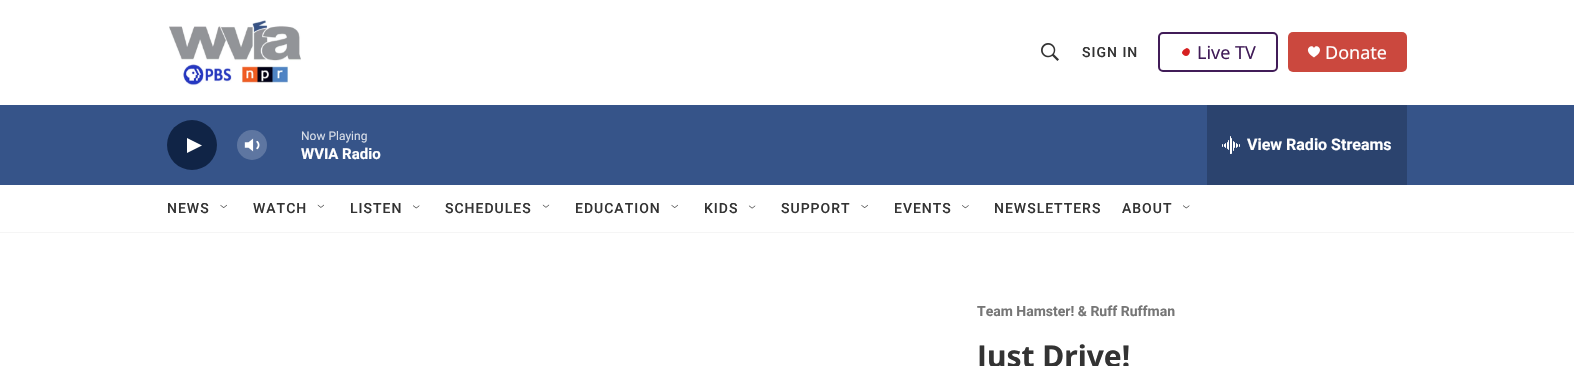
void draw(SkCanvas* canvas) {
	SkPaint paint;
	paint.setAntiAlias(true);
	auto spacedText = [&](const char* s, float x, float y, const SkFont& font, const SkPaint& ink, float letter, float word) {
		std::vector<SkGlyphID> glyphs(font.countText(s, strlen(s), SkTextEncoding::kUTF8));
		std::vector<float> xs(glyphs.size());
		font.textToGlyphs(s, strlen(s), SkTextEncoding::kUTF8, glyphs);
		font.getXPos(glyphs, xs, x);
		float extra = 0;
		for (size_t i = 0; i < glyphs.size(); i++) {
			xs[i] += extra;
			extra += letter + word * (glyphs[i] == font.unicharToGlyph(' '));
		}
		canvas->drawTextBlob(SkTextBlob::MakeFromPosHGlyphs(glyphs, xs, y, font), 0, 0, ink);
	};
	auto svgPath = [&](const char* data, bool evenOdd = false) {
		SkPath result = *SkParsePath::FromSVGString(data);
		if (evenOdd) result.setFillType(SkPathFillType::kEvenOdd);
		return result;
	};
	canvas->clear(0xffffffff);
	paint.setColor(0xfff5f5f5);
	canvas->drawRect(SkRect::MakeXYWH(0, 232, 1574, 1), paint);
	canvas->drawImageRect(SkImages::DeferredFromEncodedData(SkData::MakeFromFileName("img1.png")), SkRect::MakeXYWH(169, 20, 132, 66), SkSamplingOptions());
	canvas->drawImageRect(SkImages::DeferredFromEncodedData(SkData::MakeFromFileName("img2.png")), SkRect::MakeXYWH(1041, 43, 18, 18), SkSamplingOptions());
	SkFont f1(fontMgr->matchFamilyStyle("Roboto", SkFontStyle(500, SkFontStyle::kNormal_Width, SkFontStyle::kUpright_Slant)), 14);
	f1.setSubpixel(true);
	paint.setColor(0xff333333);
	spacedText("SIGN IN", 1082, 57, f1, paint, 1, 0);
	paint.setStroke(true);
	paint.setStrokeWidth(2);
	paint.setColor(0xff411c58);
	canvas->drawRoundRect(SkRect::MakeXYWH(1159, 33, 118, 38), 4, 4, paint);
	paint.setStroke(false);
	paint.setColor(0xffd62021);
	canvas->drawPath(svgPath("M1187 48C1193 49.5 1188.5 59 1183.5 55C1183 54.5 1182 53.5 1182 53C1182 50.5 1185 48.5 1187 48Z"), paint);
	SkFont f2(fontMgr->matchFamilyStyle("Noto Sans", SkFontStyle::Normal()), 18);
	f2.setSubpixel(true);
	paint.setColor(0xff411c58);
	canvas->drawString("Live TV", 1197, 59, f2, paint);
	paint.setColor(0xffcb483e);
	canvas->drawRoundRect(SkRect::MakeXYWH(1288, 32, 119, 40), 5, 5, paint);
	paint.setColor(0xffffffff);
	canvas->drawPath(svgPath("M1314 48C1312 43 1301.5 50 1314 57.5C1326.5 50 1316 43 1314 48Z"), paint);
	canvas->drawString("Donate", 1325, 59, f2, paint);
	paint.setColor(0xff365489);
	canvas->drawRect(SkRect::MakeXYWH(0, 105, 1574, 80), paint);
	paint.setColor(0xff102446);
	canvas->drawCircle(192, 145, 25, paint);
	paint.setColor(0xffffffff);
	canvas->drawPath(svgPath("M187 138L202 145.5L187 153Z"), paint);
	canvas->drawImageRect(SkImages::DeferredFromEncodedData(SkData::MakeFromFileName("img3.png")), SkRect::MakeXYWH(244, 138, 16, 14), SkSamplingOptions());
	paint.setColor(0x33ffffff);
	canvas->drawCircle(252, 145, 15, paint);
	SkFont f3(fontMgr->matchFamilyStyle("Roboto", SkFontStyle::Normal()), 12);
	f3.setSubpixel(true);
	paint.setColor(0xffd7dde7);
	canvas->drawString("Now Playing", 301, 140, f3, paint);
	SkFont f4(fontMgr->matchFamilyStyle("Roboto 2", SkFontStyle::Bold()), 15);
	f4.setSubpixel(true);
	paint.setColor(0xffffffff);
	canvas->drawString("WVIA Radio", 301, 159, f4, paint);
	paint.setColor(0xff2b436e);
	canvas->drawRect(SkRect::MakeXYWH(1207, 105, 200, 80), paint);
	canvas->drawImageRect(SkImages::DeferredFromEncodedData(SkData::MakeFromFileName("img4.png")), SkRect::MakeXYWH(1222, 136, 18, 18), SkSamplingOptions());
	SkFont f5(fontMgr->matchFamilyStyle("Roboto 2", SkFontStyle::Bold()), 16);
	f5.setSubpixel(true);
	paint.setColor(0xffffffff);
	canvas->drawString("View Radio Streams", 1247, 150, f5, paint);
	paint.setColor(0xff333333);
	spacedText("NEWS", 167, 213, f1, paint, 1, 0);
	canvas->drawImageRect(SkImages::DeferredFromEncodedData(SkData::MakeFromFileName("img5.png")), SkRect::MakeXYWH(220, 204, 7, 4), SkSamplingOptions());
	spacedText("WATCH", 253, 213, f1, paint, 1, 0);
	canvas->drawImageRect(SkImages::DeferredFromEncodedData(SkData::MakeFromFileName("img6.png")), SkRect::MakeXYWH(317, 204, 7, 4), SkSamplingOptions());
	spacedText("LISTEN", 350, 213, f1, paint, 1, 0);
	canvas->drawImageRect(SkImages::DeferredFromEncodedData(SkData::MakeFromFileName("img7.png")), SkRect::MakeXYWH(413, 205, 7, 4), SkSamplingOptions());
	spacedText("SCHEDULES", 445, 213, f1, paint, 1, 0);
	canvas->drawImageRect(SkImages::DeferredFromEncodedData(SkData::MakeFromFileName("img8.png")), SkRect::MakeXYWH(542, 204, 8, 4), SkSamplingOptions());
	spacedText("EDUCATION", 575, 213, f1, paint, 1, 0);
	canvas->drawImageRect(SkImages::DeferredFromEncodedData(SkData::MakeFromFileName("img9.png")), SkRect::MakeXYWH(671, 204, 7, 4), SkSamplingOptions());
	spacedText("KIDS", 704, 213, f1, paint, 1, 0);
	canvas->drawImageRect(SkImages::DeferredFromEncodedData(SkData::MakeFromFileName("img10.png")), SkRect::MakeXYWH(748, 205, 8, 4), SkSamplingOptions());
	spacedText("SUPPORT", 781, 213, f1, paint, 1, 0);
	canvas->drawImageRect(SkImages::DeferredFromEncodedData(SkData::MakeFromFileName("img11.png")), SkRect::MakeXYWH(861, 204, 7, 4), SkSamplingOptions());
	spacedText("EVENTS", 894, 213, f1, paint, 1, 0);
	canvas->drawImageRect(SkImages::DeferredFromEncodedData(SkData::MakeFromFileName("img12.png")), SkRect::MakeXYWH(962, 205, 7, 4), SkSamplingOptions());
	spacedText("NEWSLETTERS", 994, 213, f1, paint, 1, 0);
	spacedText("ABOUT", 1122, 213, f1, paint, 1, 0);
	canvas->drawImageRect(SkImages::DeferredFromEncodedData(SkData::MakeFromFileName("img13.png")), SkRect::MakeXYWH(1183, 205, 7, 4), SkSamplingOptions());
	SkFont f6(fontMgr->matchFamilyStyle("Roboto", SkFontStyle::Bold()), 14);
	f6.setSubpixel(true);
	paint.setColor(0xff767676);
	canvas->drawString("Team Hamster! & Ruff Ruffman", 977, 316, f6, paint);
	SkFont f7(fontMgr->matchFamilyStyle("Noto Sans", SkFontStyle::Bold()), 30);
	f7.setSubpixel(true);
	paint.setColor(0xff333333);
	canvas->drawString("Just Drive!", 977, 367, f7, paint);
}
